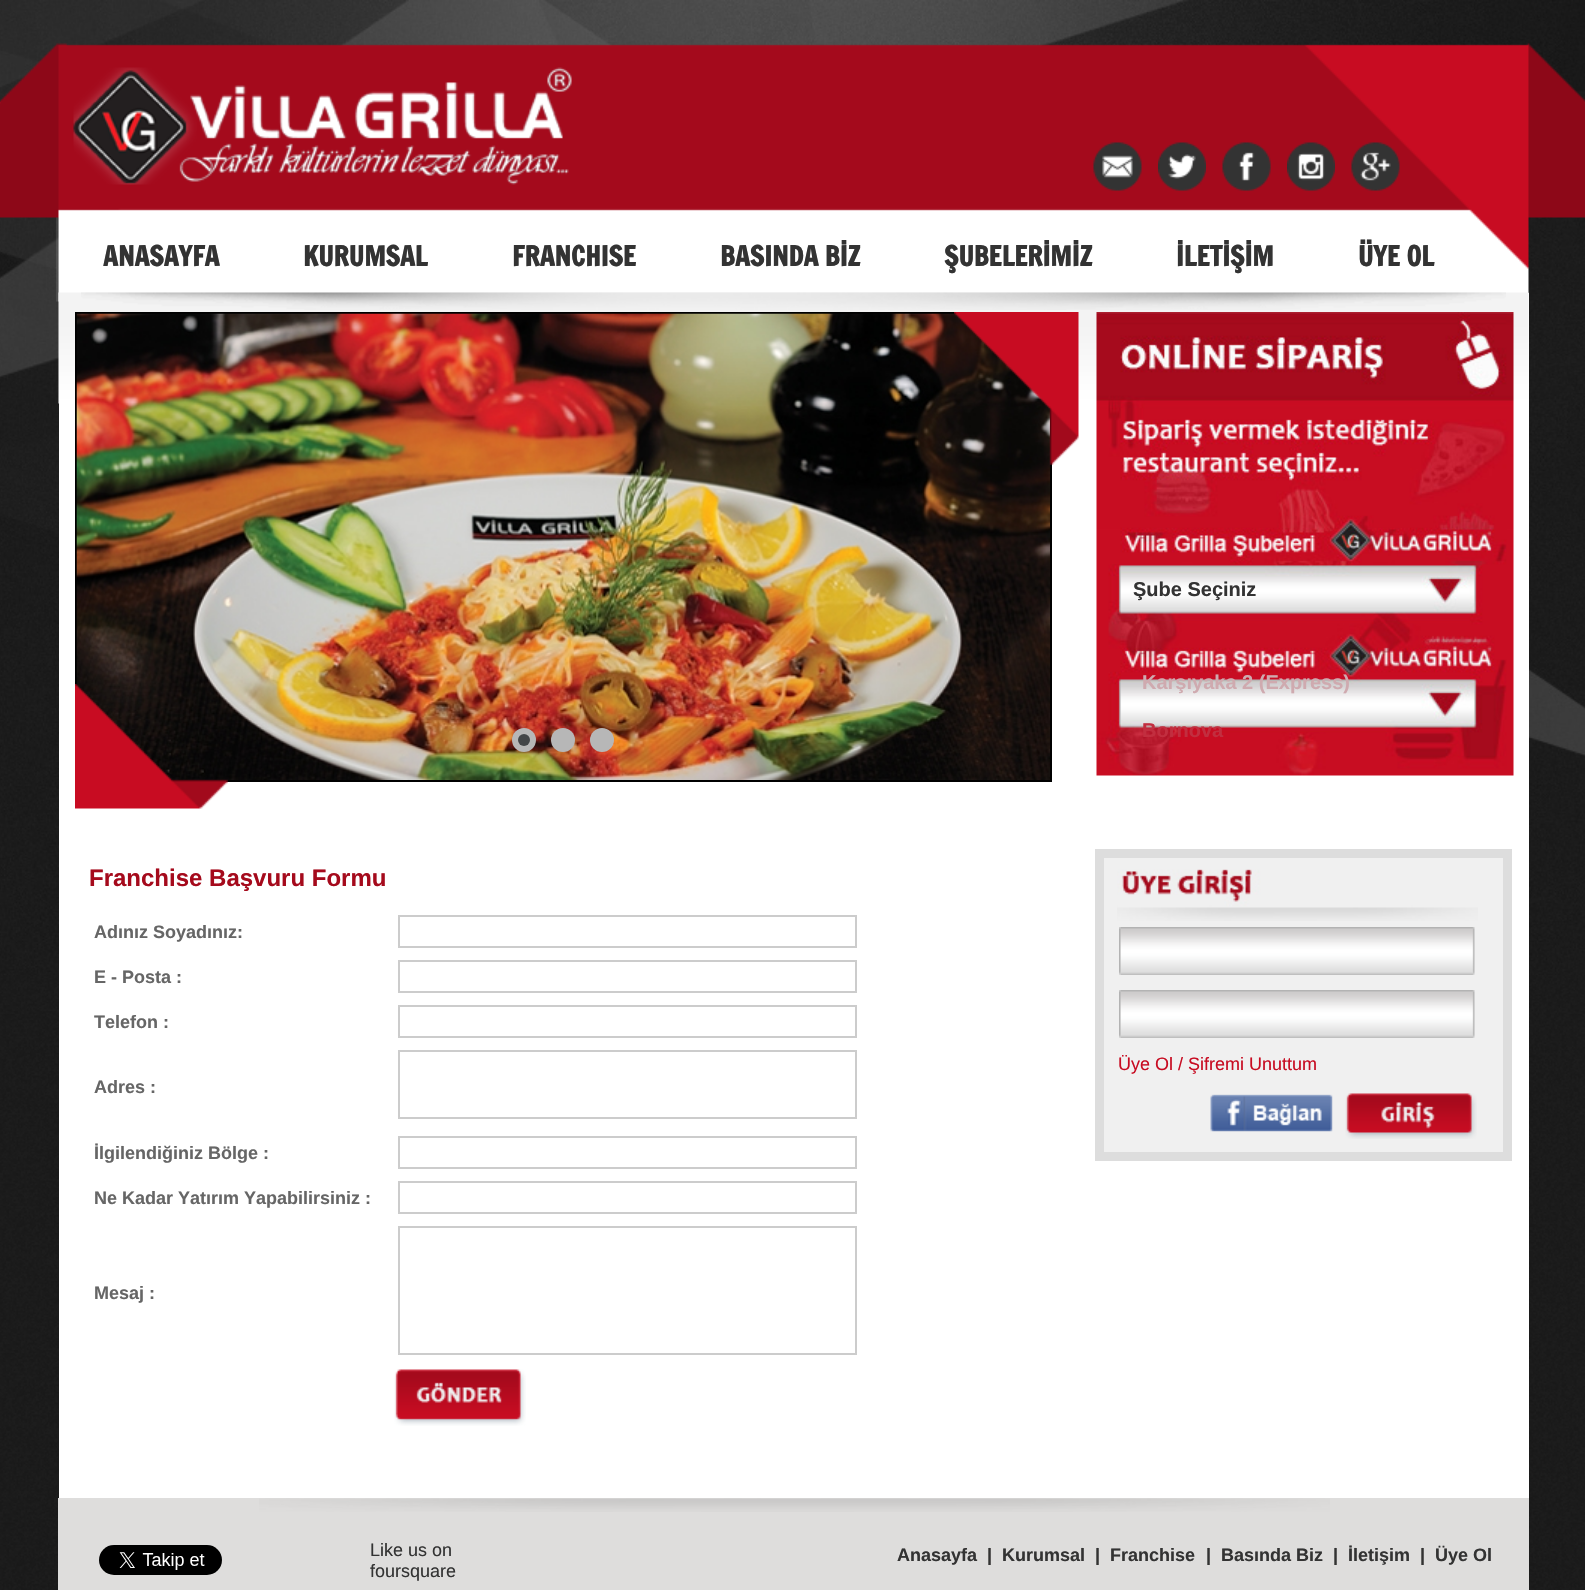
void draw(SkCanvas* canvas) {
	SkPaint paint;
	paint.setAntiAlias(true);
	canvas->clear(0xffffffff);
	canvas->drawImageRect(SkImages::DeferredFromEncodedData(SkData::MakeFromFileName("img1.png")), SkRect::MakeXYWH(0, 975, 1585, 615), SkSamplingOptions());
	canvas->drawImageRect(SkImages::DeferredFromEncodedData(SkData::MakeFromFileName("img2.png")), SkRect::MakeXYWH(0, 0, 1585, 975), SkSamplingOptions());
	canvas->drawImageRect(SkImages::DeferredFromEncodedData(SkData::MakeFromFileName("img3.png")), SkRect::MakeXYWH(0, 43, 1585, 259), SkSamplingOptions());
	canvas->drawImageRect(SkImages::DeferredFromEncodedData(SkData::MakeFromFileName("img4.png")), SkRect::MakeXYWH(58, 44, 1471, 258), SkSamplingOptions());
	canvas->drawImageRect(SkImages::DeferredFromEncodedData(SkData::MakeFromFileName("img5.png")), SkRect::MakeXYWH(73, 67, 499, 118), SkSamplingOptions());
	canvas->drawImageRect(SkImages::DeferredFromEncodedData(SkData::MakeFromFileName("img6.png")), SkRect::MakeXYWH(1093, 142, 49, 49), SkSamplingOptions());
	canvas->drawImageRect(SkImages::DeferredFromEncodedData(SkData::MakeFromFileName("img7.png")), SkRect::MakeXYWH(1158, 142, 48, 49), SkSamplingOptions());
	canvas->drawImageRect(SkImages::DeferredFromEncodedData(SkData::MakeFromFileName("img8.png")), SkRect::MakeXYWH(1222, 142, 49, 49), SkSamplingOptions());
	canvas->drawImageRect(SkImages::DeferredFromEncodedData(SkData::MakeFromFileName("img9.png")), SkRect::MakeXYWH(1287, 142, 48, 49), SkSamplingOptions());
	canvas->drawImageRect(SkImages::DeferredFromEncodedData(SkData::MakeFromFileName("img10.png")), SkRect::MakeXYWH(1351, 142, 49, 49), SkSamplingOptions());
	SkFont f1(fontMgr->matchFamilyStyle("Francois One", SkFontStyle::Bold()), 27);
	f1.setSubpixel(true);
	paint.setColor(0xff333333);
	canvas->drawString("ANASAYFA", 103, 266, f1, paint);
	canvas->drawString("KURUMSAL", 303, 266, f1, paint);
	canvas->drawString("FRANCHISE", 512, 266, f1, paint);
	canvas->drawString("BASINDA BİZ", 720, 266, f1, paint);
	canvas->drawString("ŞUBELERİMİZ", 944, 266, f1, paint);
	canvas->drawString("İLETİŞİM", 1176, 266, f1, paint);
	canvas->drawString("ÜYE OL", 1358, 266, f1, paint);
	paint.setColor(0xffffffff);
	canvas->drawRect(SkRect::MakeXYWH(59, 293, 1470, 1205), paint);
	canvas->drawImageRect(SkImages::DeferredFromEncodedData(SkData::MakeFromFileName("img11.png")), SkRect::MakeXYWH(58, 292, 1471, 112), SkSamplingOptions());
	canvas->drawImageRect(SkImages::DeferredFromEncodedData(SkData::MakeFromFileName("img12.png")), SkRect::MakeXYWH(81, 292, 1425, 18), SkSamplingOptions());
	paint.setColor(0xff000000);
	canvas->drawRect(SkRect::MakeXYWH(75, 312, 977, 470), paint);
	canvas->drawImageRect(SkImages::DeferredFromEncodedData(SkData::MakeFromFileName("img13.png")), SkRect::MakeXYWH(76, 313, 974, 467), SkSamplingOptions());
	paint.setColor(0xffb7b7b7);
	canvas->drawCircle(524, 740, 12, paint);
	paint.setColor(0xff434648);
	canvas->drawCircle(524, 740, 6, paint);
	paint.setColor(0xffb7b7b7);
	canvas->drawCircle(563, 740, 12, paint);
	canvas->drawCircle(602, 740, 12, paint);
	canvas->drawImageRect(SkImages::DeferredFromEncodedData(SkData::MakeFromFileName("img14.png")), SkRect::MakeXYWH(954, 312, 125, 153), SkSamplingOptions());
	canvas->drawImageRect(SkImages::DeferredFromEncodedData(SkData::MakeFromFileName("img15.png")), SkRect::MakeXYWH(75, 684, 153, 125), SkSamplingOptions());
	canvas->drawImageRect(SkImages::DeferredFromEncodedData(SkData::MakeFromFileName("img16.png")), SkRect::MakeXYWH(1096, 312, 418, 464), SkSamplingOptions());
	SkFont f2(fontMgr->matchFamilyStyle("Liberation Sans", SkFontStyle::Bold()), 20);
	f2.setSubpixel(true);
	paint.setColor(0xff333333);
	canvas->drawString("Şube Seçiniz", 1133, 596, f2, paint);
	paint.setColor(0xffcfaaaf);
	canvas->drawString("Karşıyaka 2 (Express)", 1142, 689, f2, paint);
	paint.setColor(0xffc22e3f);
	canvas->drawString("Bornova", 1142, 737, f2, paint);
	SkFont f3(fontMgr->matchFamilyStyle("Liberation Sans", SkFontStyle::Bold()), 24);
	f3.setSubpixel(true);
	paint.setColor(0xffa50a1c);
	canvas->drawString("Franchise Başvuru Formu", 89, 886, f3, paint);
	SkFont f4(fontMgr->matchFamilyStyle("Liberation Sans", SkFontStyle::Bold()), 18);
	f4.setSubpixel(true);
	paint.setColor(0xff666666);
	canvas->drawString("Adınız Soyadınız:", 94, 938, f4, paint);
	paint.setStroke(true);
	paint.setStrokeWidth(2);
	paint.setColor(0xffcccccc);
	canvas->drawRect(SkRect::MakeXYWH(399, 916, 457, 31), paint);
	paint.setStroke(false);
	paint.setColor(0xff666666);
	canvas->drawString("E - Posta :", 94, 983, f4, paint);
	paint.setStroke(true);
	paint.setColor(0xffcccccc);
	canvas->drawRect(SkRect::MakeXYWH(399, 961, 457, 31), paint);
	paint.setStroke(false);
	paint.setColor(0xff666666);
	canvas->drawString("Telefon :", 94, 1028, f4, paint);
	paint.setStroke(true);
	paint.setColor(0xffcccccc);
	canvas->drawRect(SkRect::MakeXYWH(399, 1006, 457, 31), paint);
	paint.setStroke(false);
	paint.setColor(0xff666666);
	canvas->drawString("Adres :", 94, 1093, f4, paint);
	paint.setStroke(true);
	paint.setColor(0xffcccccc);
	canvas->drawRect(SkRect::MakeXYWH(399, 1051, 457, 67), paint);
	paint.setStroke(false);
	paint.setColor(0xff666666);
	canvas->drawString("İlgilendiğiniz Bölge :", 94, 1159, f4, paint);
	paint.setStroke(true);
	paint.setColor(0xffcccccc);
	canvas->drawRect(SkRect::MakeXYWH(399, 1137, 457, 31), paint);
	paint.setStroke(false);
	paint.setColor(0xff666666);
	canvas->drawString("Ne Kadar Yatırım Yapabilirsiniz :", 94, 1204, f4, paint);
	paint.setStroke(true);
	paint.setColor(0xffcccccc);
	canvas->drawRect(SkRect::MakeXYWH(399, 1182, 457, 31), paint);
	paint.setStroke(false);
	paint.setColor(0xff666666);
	canvas->drawString("Mesaj :", 94, 1299, f4, paint);
	paint.setStroke(true);
	paint.setColor(0xffcccccc);
	canvas->drawRect(SkRect::MakeXYWH(399, 1227, 457, 127), paint);
	canvas->drawImageRect(SkImages::DeferredFromEncodedData(SkData::MakeFromFileName("img17.png")), SkRect::MakeXYWH(394, 1369, 132, 57), SkSamplingOptions());
	paint.setStroke(false);
	paint.setColor(0xfff0f0f0);
	canvas->drawRect(SkRect::MakeXYWH(1099.5, 853.5, 408, 303), paint);
	paint.setStroke(true);
	paint.setStrokeWidth(9);
	paint.setColor(0xffdddddd);
	canvas->drawRect(SkRect::MakeXYWH(1099.5, 853.5, 408, 303), paint);
	canvas->drawImageRect(SkImages::DeferredFromEncodedData(SkData::MakeFromFileName("img18.png")), SkRect::MakeXYWH(1117, 869, 361, 52), SkSamplingOptions());
	canvas->drawImageRect(SkImages::DeferredFromEncodedData(SkData::MakeFromFileName("img19.png")), SkRect::MakeXYWH(1119, 927, 356, 48), SkSamplingOptions());
	canvas->drawImageRect(SkImages::DeferredFromEncodedData(SkData::MakeFromFileName("img19.png")), SkRect::MakeXYWH(1119, 990, 356, 48), SkSamplingOptions());
	SkFont f5(fontMgr->matchFamilyStyle("Liberation Sans", SkFontStyle::Normal()), 18);
	f5.setSubpixel(true);
	paint.setStroke(false);
	paint.setColor(0xffc80c22);
	canvas->drawString("Üye Ol / Şifremi Unuttum", 1118, 1070, f5, paint);
	canvas->drawImageRect(SkImages::DeferredFromEncodedData(SkData::MakeFromFileName("img20.png")), SkRect::MakeXYWH(1210, 1094, 123, 38), SkSamplingOptions());
	canvas->drawImageRect(SkImages::DeferredFromEncodedData(SkData::MakeFromFileName("img21.png")), SkRect::MakeXYWH(1345, 1093, 132, 46), SkSamplingOptions());
	paint.setColor(0xffdedddc);
	canvas->drawRect(SkRect::MakeXYWH(58, 1498, 1471, 92), paint);
	canvas->drawImageRect(SkImages::DeferredFromEncodedData(SkData::MakeFromFileName("img22.png")), SkRect::MakeXYWH(259, 1498, 1071, 14), SkSamplingOptions());
	canvas->drawImageRect(SkImages::DeferredFromEncodedData(SkData::MakeFromFileName("img23.png")), SkRect::MakeXYWH(99, 1545, 123, 30), SkSamplingOptions());
	paint.setColor(0xff333333);
	canvas->drawString("Like us on", 370, 1556, f5, paint);
	canvas->drawString("foursquare", 370, 1577, f5, paint);
	canvas->drawString("Anasayfa", 897, 1561, f4, paint);
	canvas->drawString("|", 987, 1561, f4, paint);
	canvas->drawString("Kurumsal", 1002, 1561, f4, paint);
	canvas->drawString("|", 1095, 1561, f4, paint);
	canvas->drawString("Franchise", 1110, 1561, f4, paint);
	canvas->drawString("|", 1206, 1561, f4, paint);
	canvas->drawString("Basında Biz", 1221, 1561, f4, paint);
	canvas->drawString("|", 1333, 1561, f4, paint);
	canvas->drawString("İletişim", 1348, 1561, f4, paint);
	canvas->drawString("|", 1420, 1561, f4, paint);
	canvas->drawString("Üye Ol", 1435, 1561, f4, paint);
}
